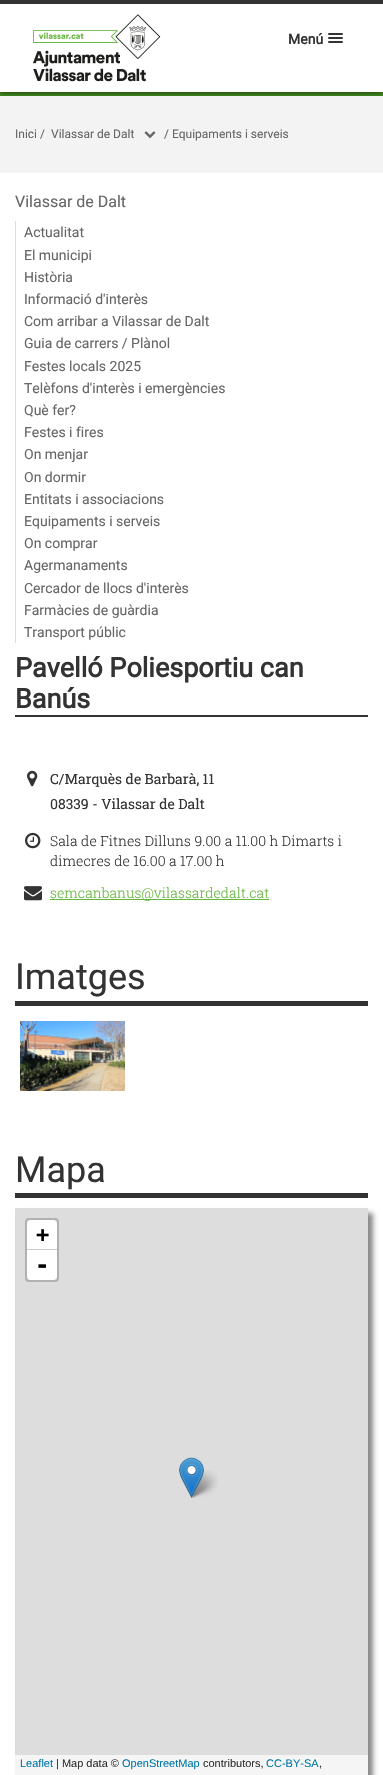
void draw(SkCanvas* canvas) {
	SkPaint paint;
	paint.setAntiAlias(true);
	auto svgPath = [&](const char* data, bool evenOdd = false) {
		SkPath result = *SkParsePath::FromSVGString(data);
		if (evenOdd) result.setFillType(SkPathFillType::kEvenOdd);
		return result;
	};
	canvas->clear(0xff489a21);
	paint.setColor(0x73000000);
	paint.setMaskFilter(SkMaskFilter::MakeBlur(kNormal_SkBlurStyle, 2.5));
	canvas->drawRect(SkRect::MakeXYWH(0, 3, 383, 92), paint);
	paint.setMaskFilter(nullptr);
	paint.setColor(0xffffffff);
	canvas->drawRect(SkRect::MakeXYWH(0, 4, 383, 88), paint);
	paint.setColor(0xff333333);
	canvas->drawRect(SkRect::MakeXYWH(0, 0, 383, 4), paint);
	canvas->drawImageRect(SkImages::DeferredFromEncodedData(SkData::MakeFromFileName("img1.png")), SkRect::MakeXYWH(33, 14, 128, 68), SkSamplingOptions());
	SkFont f1(fontMgr->matchFamilyStyle("Roboto", SkFontStyle::Bold()), 14);
	f1.setSubpixel(true);
	canvas->drawString("Menú", 288, 44, f1, paint);
	canvas->drawRoundRect(SkRect::MakeXYWH(328, 33, 15, 2), 1, 1, paint);
	canvas->drawRoundRect(SkRect::MakeXYWH(328, 37, 15, 2), 1, 1, paint);
	canvas->drawRoundRect(SkRect::MakeXYWH(328, 41, 15, 2), 1, 1, paint);
	paint.setColor(0xffffffff);
	canvas->drawRect(SkRect::MakeXYWH(0, 173, 383, 1602), paint);
	paint.setColor(0xfff3f3f3);
	canvas->drawRect(SkRect::MakeXYWH(0, 96, 383, 77), paint);
	SkFont f2(fontMgr->matchFamilyStyle("Roboto", SkFontStyle::Normal()), 12);
	f2.setSubpixel(true);
	paint.setColor(0xff666666);
	canvas->drawString("Inici /", 15, 138, f2, paint);
	canvas->drawString("Vilassar de Dalt", 51, 138, f2, paint);
	canvas->drawImageRect(SkImages::DeferredFromEncodedData(SkData::MakeFromFileName("img2.png")), SkRect::MakeXYWH(144, 131, 12, 8), SkSamplingOptions());
	canvas->drawString("/ Equipaments i serveis", 164, 138, f2, paint);
	SkFont f3(fontMgr->matchFamilyStyle("Roboto", SkFontStyle::Normal()), 16);
	f3.setSubpixel(true);
	canvas->drawString("Vilassar de Dalt", 15, 207, f3, paint);
	paint.setColor(0xffdddddd);
	canvas->drawRect(SkRect::MakeXYWH(15, 221, 1, 422), paint);
	SkFont f4(fontMgr->matchFamilyStyle("Roboto", SkFontStyle::Normal()), 14);
	f4.setSubpixel(true);
	paint.setColor(0xff666666);
	canvas->drawString("Actualitat", 24, 237, f4, paint);
	canvas->drawString("El municipi", 24, 260, f4, paint);
	canvas->drawString("Història", 24, 282, f4, paint);
	canvas->drawString("Informació d'interès", 24, 304, f4, paint);
	canvas->drawString("Com arribar a Vilassar de Dalt", 24, 326, f4, paint);
	canvas->drawString("Guia de carrers / Plànol", 24, 348, f4, paint);
	canvas->drawString("Festes locals 2025", 24, 371, f4, paint);
	canvas->drawString("Telèfons d'interès i emergències", 24, 393, f4, paint);
	canvas->drawString("Què fer?", 24, 415, f4, paint);
	canvas->drawString("Festes i fires", 24, 437, f4, paint);
	canvas->drawString("On menjar", 24, 459, f4, paint);
	canvas->drawString("On dormir", 24, 482, f4, paint);
	canvas->drawString("Entitats i associacions", 24, 504, f4, paint);
	canvas->drawString("Equipaments i serveis", 24, 526, f4, paint);
	canvas->drawString("On comprar", 24, 548, f4, paint);
	canvas->drawString("Agermanaments", 24, 570, f4, paint);
	canvas->drawString("Cercador de llocs d'interès", 24, 593, f4, paint);
	canvas->drawString("Farmàcies de guàrdia", 24, 615, f4, paint);
	canvas->drawString("Transport públic", 24, 637, f4, paint);
	paint.setColor(0xff333333);
	canvas->drawRect(SkRect::MakeXYWH(15, 715, 353, 2), paint);
	SkFont f5(fontMgr->matchFamilyStyle("Roboto", SkFontStyle::Bold()), 27);
	f5.setSubpixel(true);
	canvas->drawString("Pavelló Poliesportiu can", 15, 677, f5, paint);
	canvas->drawString("Banús", 15, 708, f5, paint);
	canvas->drawImageRect(SkImages::DeferredFromEncodedData(SkData::MakeFromFileName("img3.png")), SkRect::MakeXYWH(27, 770, 11, 17), SkSamplingOptions());
	SkFont f6(fontMgr->matchFamilyStyle("Roboto Slab", SkFontStyle::Normal()), 14);
	f6.setSubpixel(true);
	canvas->drawString("C/Marquès de Barbarà, 11", 50, 784, f6, paint);
	canvas->drawString("08339 - Vilassar de Dalt", 50, 809, f6, paint);
	canvas->drawImageRect(SkImages::DeferredFromEncodedData(SkData::MakeFromFileName("img4.png")), SkRect::MakeXYWH(25, 832, 16, 17), SkSamplingOptions());
	SkFont f7(fontMgr->matchFamilyStyle("Roboto Slab", SkFontStyle(300, SkFontStyle::kNormal_Width, SkFontStyle::kUpright_Slant)), 14);
	f7.setSubpixel(true);
	canvas->drawString("Sala de Fitnes Dilluns 9.00 a 11.00 h Dimarts i", 50, 846, f7, paint);
	canvas->drawString("dimecres de 16.00 a 17.00 h", 50, 866, f7, paint);
	canvas->drawImageRect(SkImages::DeferredFromEncodedData(SkData::MakeFromFileName("img5.png")), SkRect::MakeXYWH(24, 886, 18, 15), SkSamplingOptions());
	paint.setColor(0xff64b43c);
	canvas->drawRect(SkRect::MakeXYWH(50, 899, 219, 1), paint);
	canvas->drawString("semcanbanus@vilassardedalt.cat", 50, 898, f7, paint);
	paint.setColor(0xff333333);
	canvas->drawRect(SkRect::MakeXYWH(15, 1001, 353, 5), paint);
	SkFont f8(fontMgr->matchFamilyStyle("Roboto", SkFontStyle::Normal()), 36);
	f8.setSubpixel(true);
	canvas->drawString("Imatges", 15, 989, f8, paint);
	canvas->drawImageRect(SkImages::DeferredFromEncodedData(SkData::MakeFromFileName("img6.png")), SkRect::MakeXYWH(20, 1021, 105, 70), SkSamplingOptions());
	canvas->drawRect(SkRect::MakeXYWH(15, 1193, 353, 5), paint);
	canvas->drawString("Mapa", 15, 1182, f8, paint);
	paint.setColor(0xff888888);
	paint.setMaskFilter(SkMaskFilter::MakeBlur(kNormal_SkBlurStyle, 2.5));
	canvas->drawRect(SkRect::MakeXYWH(20, 1213, 353, 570), paint);
	paint.setMaskFilter(nullptr);
	paint.setColor(0xffdddddd);
	canvas->drawRect(SkRect::MakeXYWH(15, 1208, 353, 547), paint);
	paint.setStroke(true);
	paint.setStrokeWidth(2);
	paint.setColor(0xffb1b1b1);
	canvas->drawRoundRect(SkRect::MakeXYWH(26, 1219, 32, 62), 3, 3, paint);
	paint.setStroke(false);
	paint.setColor(0xffffffff);
	canvas->drawPath(svgPath("M31 1220H53C55 1220 57 1222 57 1224V1250H27V1224C27 1222 29 1220 31 1220Z"), paint);
	paint.setColor(0xffcccccc);
	canvas->drawRect(SkRect::MakeXYWH(27, 1249, 30, 1), paint);
	SkFont f9(fontMgr->matchFamilyStyle("DejaVu Sans Mono", SkFontStyle::Bold()), 22);
	f9.setSubpixel(true);
	paint.setColor(0xff000000);
	canvas->drawString("+", 36, 1242, f9, paint);
	paint.setColor(0xffffffff);
	canvas->drawPath(svgPath("M27 1250H57V1276C57 1278 55 1280 53 1280H31C29 1280 27 1278 27 1276Z"), paint);
	SkFont f10(fontMgr->matchFamilyStyle("DejaVu Sans Mono", SkFontStyle::Bold()), 24);
	f10.setSubpixel(true);
	paint.setColor(0xff000000);
	canvas->drawString("-", 35, 1273, f10, paint);
	paint.setColor(0xfff5f5f5);
	canvas->drawRect(SkRect::MakeXYWH(15, 1755, 353, 20), paint);
	SkFont f11(fontMgr->matchFamilyStyle("Liberation Sans", SkFontStyle::Normal()), 11);
	f11.setSubpixel(true);
	paint.setColor(0xff0078a8);
	canvas->drawString("Leaflet", 20, 1767, f11, paint);
	paint.setColor(0xff333333);
	canvas->drawString("| Map data ©", 56, 1767, f11, paint);
	paint.setColor(0xff0078a8);
	canvas->drawString("OpenStreetMap", 122, 1767, f11, paint);
	paint.setColor(0xff333333);
	canvas->drawString("contributors,", 203, 1767, f11, paint);
	paint.setColor(0xff0078a8);
	canvas->drawString("CC-BY-SA", 266, 1767, f11, paint);
	paint.setColor(0xff333333);
	canvas->drawString(",", 319, 1767, f11, paint);
	canvas->drawImageRect(SkImages::DeferredFromEncodedData(SkData::MakeFromFileName("img8.png")), SkRect::MakeXYWH(189, 1470, 29, 28), SkSamplingOptions());
	canvas->drawImageRect(SkImages::DeferredFromEncodedData(SkData::MakeFromFileName("img7.png")), SkRect::MakeXYWH(179, 1457, 25, 41), SkSamplingOptions());
}
